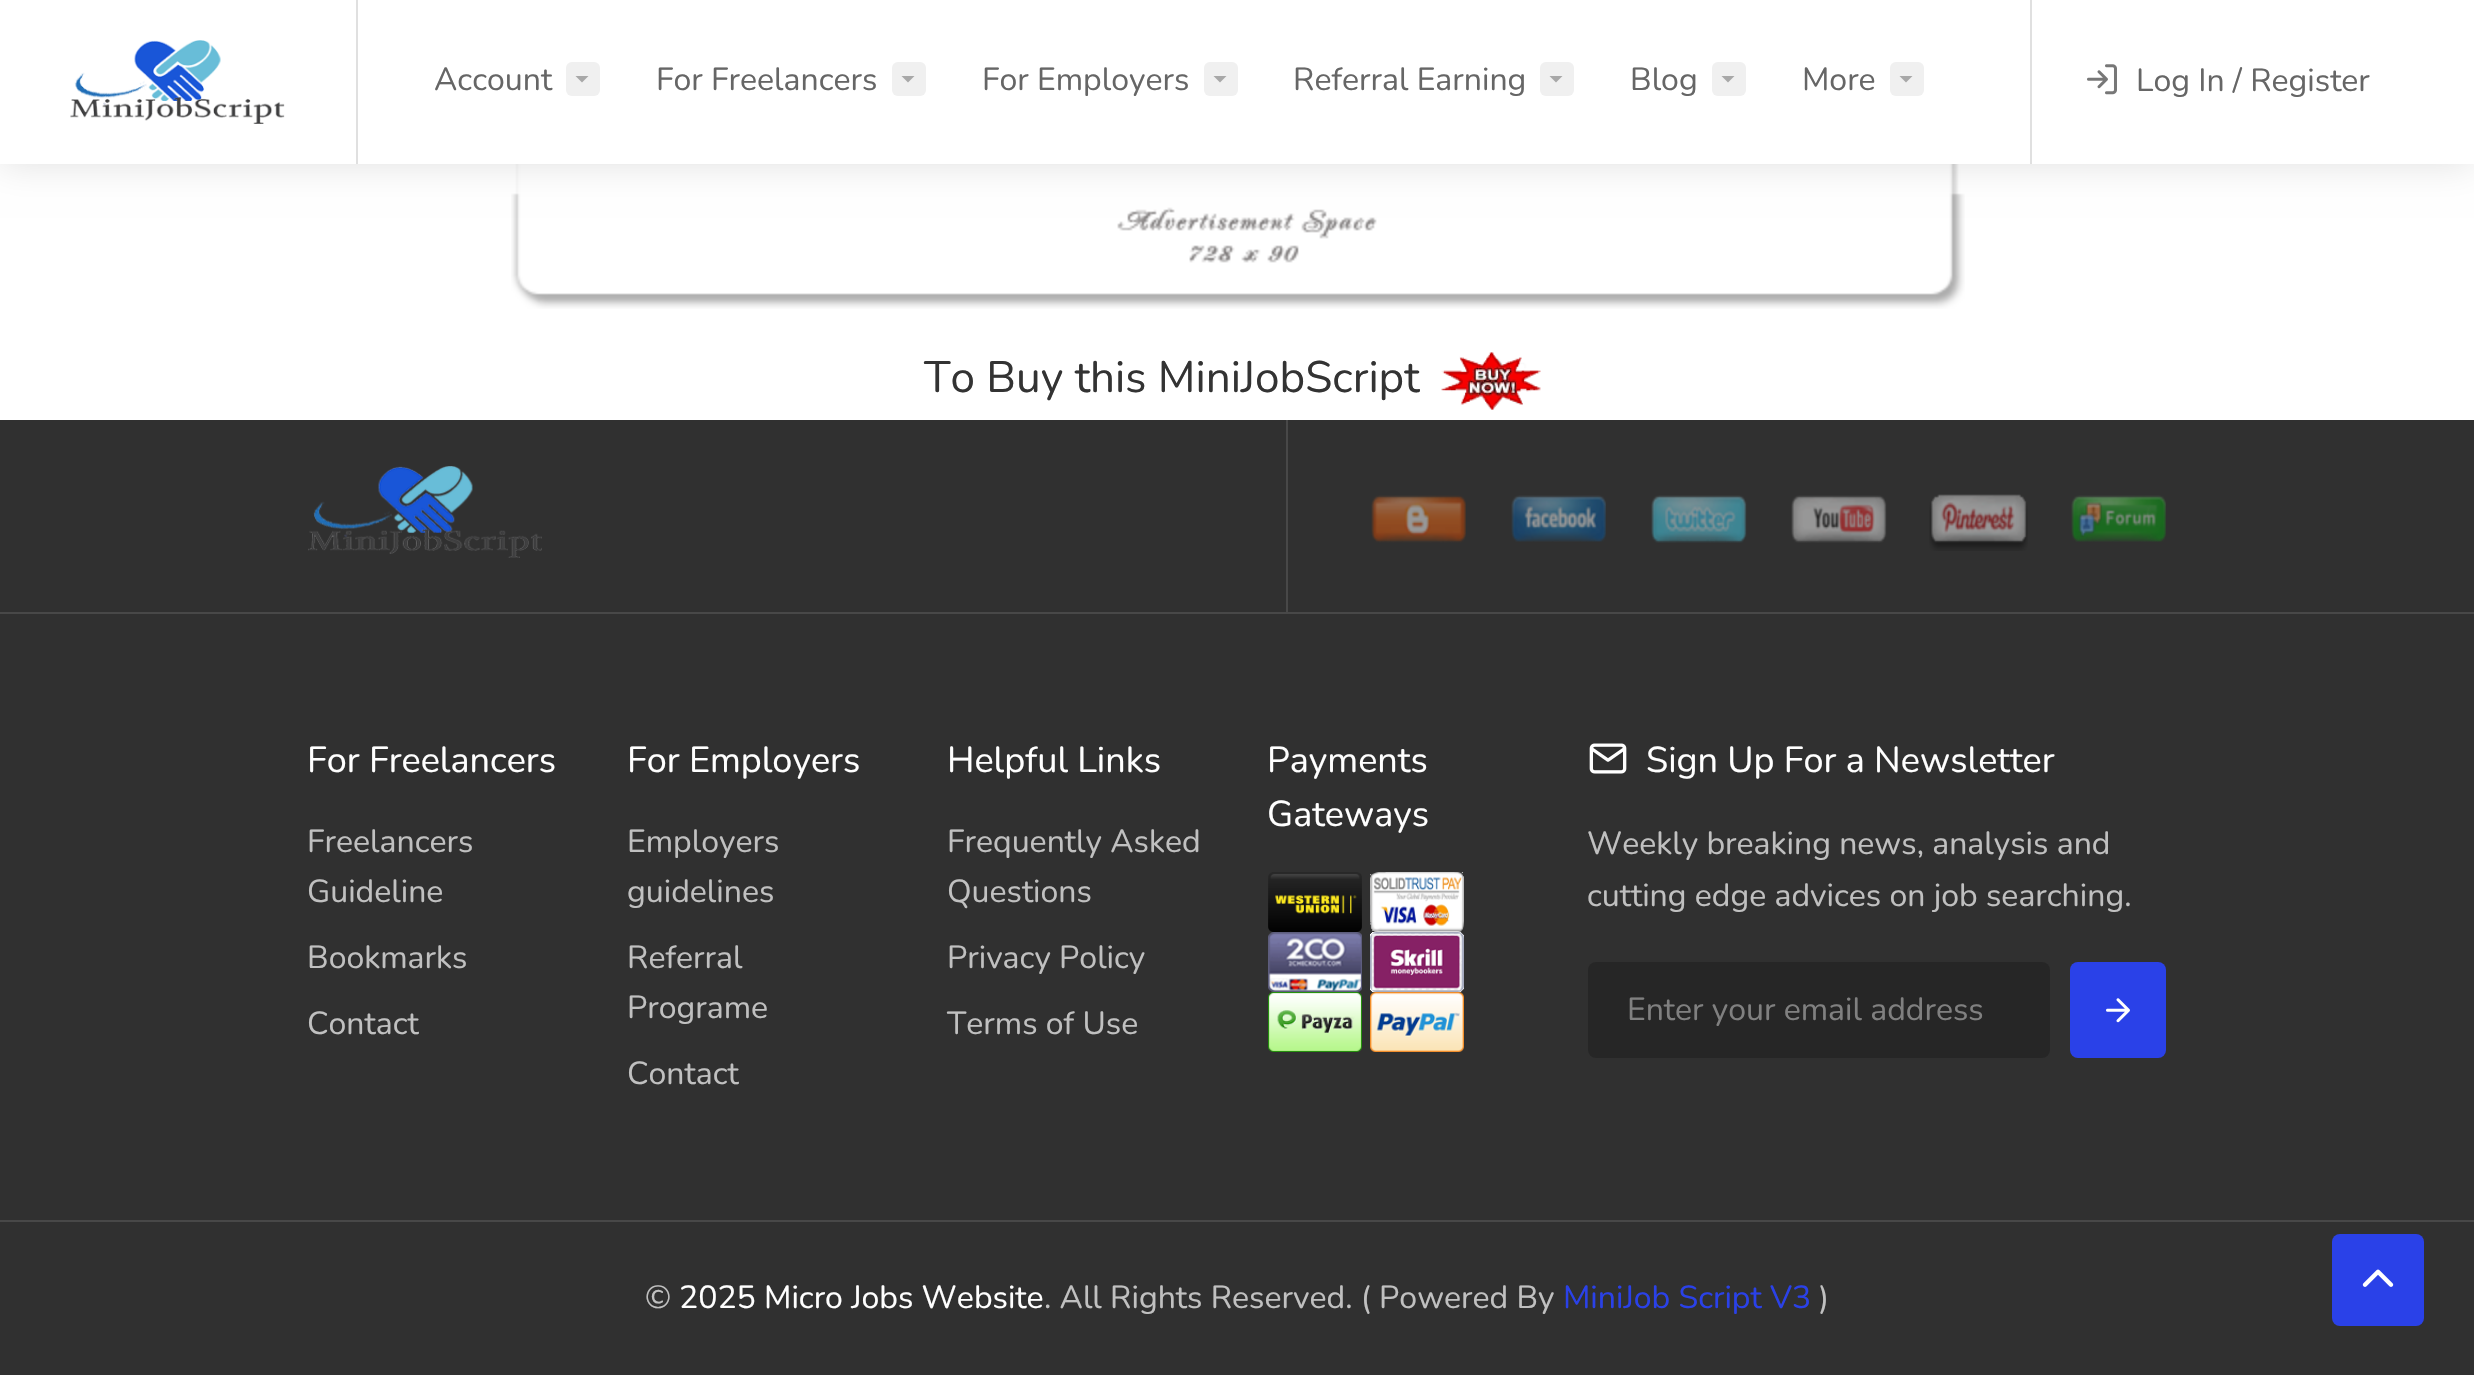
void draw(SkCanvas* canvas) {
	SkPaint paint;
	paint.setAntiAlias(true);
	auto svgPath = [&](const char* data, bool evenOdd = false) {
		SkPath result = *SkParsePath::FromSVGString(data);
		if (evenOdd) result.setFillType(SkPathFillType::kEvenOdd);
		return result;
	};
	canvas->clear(0xffffffff);
	canvas->drawImageRect(SkImages::DeferredFromEncodedData(SkData::MakeFromFileName("img3.png")), SkRect::MakeXYWH(511, 164, 1454, 145), SkSamplingOptions());
	paint.setColor(0x1f000000);
	paint.setMaskFilter(SkMaskFilter::MakeBlur(kNormal_SkBlurStyle, 18));
	canvas->drawRect(SkRect::MakeXYWH(0, 0, 2474, 164), paint);
	paint.setMaskFilter(nullptr);
	paint.setColor(0xffffffff);
	canvas->drawRect(SkRect::MakeXYWH(0, 0, 2474, 164), paint);
	paint.setColor(0xffe0e0e0);
	canvas->drawRect(SkRect::MakeXYWH(356, 0, 2, 164), paint);
	canvas->drawImageRect(SkImages::DeferredFromEncodedData(SkData::MakeFromFileName("img1.png")), SkRect::MakeXYWH(70, 40, 215, 84), SkSamplingOptions());
	SkFont f1(fontMgr->matchFamilyStyle("Nunito", SkFontStyle::Normal()), 32);
	f1.setSubpixel(true);
	paint.setColor(0xff666666);
	canvas->drawString("Account", 434, 90, f1, paint);
	paint.setColor(0xfff0f0f0);
	canvas->drawRoundRect(SkRect::MakeXYWH(566, 62, 34, 34), 6, 6, paint);
	paint.setColor(0xffa8a8a8);
	canvas->drawPath(svgPath("M575.5 76L582 82.5L588.5 76Z"), paint);
	paint.setColor(0xff666666);
	canvas->drawString("For Freelancers", 656, 90, f1, paint);
	paint.setColor(0xfff0f0f0);
	canvas->drawRoundRect(SkRect::MakeXYWH(892, 62, 34, 34), 6, 6, paint);
	paint.setColor(0xffa8a8a8);
	canvas->drawPath(svgPath("M901.5 76L908 82.5L914.5 76Z"), paint);
	paint.setColor(0xff666666);
	canvas->drawString("For Employers", 982, 90, f1, paint);
	paint.setColor(0xfff0f0f0);
	canvas->drawRoundRect(SkRect::MakeXYWH(1204, 62, 34, 34), 6, 6, paint);
	paint.setColor(0xffa8a8a8);
	canvas->drawPath(svgPath("M1213.5 76L1220 82.5L1226.5 76Z"), paint);
	paint.setColor(0xff666666);
	canvas->drawString("Referral Earning", 1293, 90, f1, paint);
	paint.setColor(0xfff0f0f0);
	canvas->drawRoundRect(SkRect::MakeXYWH(1540, 62, 34, 34), 6, 6, paint);
	paint.setColor(0xffa8a8a8);
	canvas->drawPath(svgPath("M1549.5 76L1556 82.5L1562.5 76Z"), paint);
	paint.setColor(0xff666666);
	canvas->drawString("Blog", 1630, 90, f1, paint);
	paint.setColor(0xfff0f0f0);
	canvas->drawRoundRect(SkRect::MakeXYWH(1712, 62, 34, 34), 6, 6, paint);
	paint.setColor(0xffa8a8a8);
	canvas->drawPath(svgPath("M1721.5 76L1728 82.5L1734.5 76Z"), paint);
	paint.setColor(0xff666666);
	canvas->drawString("More", 1802, 90, f1, paint);
	paint.setColor(0xfff0f0f0);
	canvas->drawRoundRect(SkRect::MakeXYWH(1890, 62, 34, 34), 6, 6, paint);
	paint.setColor(0xffa8a8a8);
	canvas->drawPath(svgPath("M1899.5 76L1906 82.5L1912.5 76Z"), paint);
	paint.setColor(0xffe0e0e0);
	canvas->drawRect(SkRect::MakeXYWH(2030, 0, 2, 164), paint);
	canvas->drawImageRect(SkImages::DeferredFromEncodedData(SkData::MakeFromFileName("img2.png")), SkRect::MakeXYWH(2087, 64, 30, 31), SkSamplingOptions());
	paint.setColor(0xff666666);
	canvas->drawString("Log In / Register", 2136, 91, f1, paint);
	SkFont f2(fontMgr->matchFamilyStyle("Nunito", SkFontStyle::Normal()), 44);
	f2.setSubpixel(true);
	paint.setColor(0xff333333);
	canvas->drawString("To Buy this MiniJobScript", 924, 392, f2, paint);
	canvas->drawImageRect(SkImages::DeferredFromEncodedData(SkData::MakeFromFileName("img4.png")), SkRect::MakeXYWH(1441, 352, 100, 58), SkSamplingOptions());
	paint.setColor(0xff303030);
	canvas->drawRect(SkRect::MakeXYWH(0, 420, 2474, 955), paint);
	paint.setColor(0xff484848);
	canvas->drawRect(SkRect::MakeXYWH(0, 612, 2474, 2), paint);
	canvas->drawImageRect(SkImages::DeferredFromEncodedData(SkData::MakeFromFileName("img5.png")), SkRect::MakeXYWH(308, 466, 234, 92), SkSamplingOptions());
	canvas->drawRect(SkRect::MakeXYWH(1286, 420, 2, 192), paint);
	canvas->drawImageRect(SkImages::DeferredFromEncodedData(SkData::MakeFromFileName("img6.png")), SkRect::MakeXYWH(1371, 495, 95, 48), SkSamplingOptions());
	canvas->drawImageRect(SkImages::DeferredFromEncodedData(SkData::MakeFromFileName("img7.png")), SkRect::MakeXYWH(1511, 495, 95, 47), SkSamplingOptions());
	canvas->drawImageRect(SkImages::DeferredFromEncodedData(SkData::MakeFromFileName("img8.png")), SkRect::MakeXYWH(1651, 495, 96, 48), SkSamplingOptions());
	canvas->drawImageRect(SkImages::DeferredFromEncodedData(SkData::MakeFromFileName("img9.png")), SkRect::MakeXYWH(1791, 495, 96, 48), SkSamplingOptions());
	canvas->drawImageRect(SkImages::DeferredFromEncodedData(SkData::MakeFromFileName("img10.png")), SkRect::MakeXYWH(1929, 494, 99, 57), SkSamplingOptions());
	canvas->drawImageRect(SkImages::DeferredFromEncodedData(SkData::MakeFromFileName("img11.png")), SkRect::MakeXYWH(2071, 495, 95, 47), SkSamplingOptions());
	SkFont f3(fontMgr->matchFamilyStyle("Nunito", SkFontStyle::Normal()), 36);
	f3.setSubpixel(true);
	paint.setColor(0xffffffff);
	canvas->drawString("For Freelancers", 307, 772, f3, paint);
	paint.setColor(0xffc0c0c0);
	canvas->drawString("Freelancers", 307, 852, f1, paint);
	canvas->drawString("Guideline", 307, 902, f1, paint);
	canvas->drawString("Bookmarks", 307, 968, f1, paint);
	canvas->drawString("Contact", 307, 1034, f1, paint);
	paint.setColor(0xffffffff);
	canvas->drawString("For Employers", 627, 772, f3, paint);
	paint.setColor(0xffc0c0c0);
	canvas->drawString("Employers", 627, 852, f1, paint);
	canvas->drawString("guidelines", 627, 902, f1, paint);
	canvas->drawString("Referral", 627, 968, f1, paint);
	canvas->drawString("Programe", 627, 1018, f1, paint);
	canvas->drawString("Contact", 627, 1084, f1, paint);
	paint.setColor(0xffffffff);
	canvas->drawString("Helpful Links", 947, 772, f3, paint);
	paint.setColor(0xffc0c0c0);
	canvas->drawString("Frequently Asked", 947, 852, f1, paint);
	canvas->drawString("Questions", 947, 902, f1, paint);
	canvas->drawString("Privacy Policy", 947, 968, f1, paint);
	canvas->drawString("Terms of Use", 947, 1034, f1, paint);
	paint.setColor(0xffffffff);
	canvas->drawString("Payments", 1267, 772, f3, paint);
	canvas->drawString("Gateways", 1267, 826, f3, paint);
	canvas->drawImageRect(SkImages::DeferredFromEncodedData(SkData::MakeFromFileName("img12.png")), SkRect::MakeXYWH(1268, 872, 94, 60), SkSamplingOptions());
	canvas->drawImageRect(SkImages::DeferredFromEncodedData(SkData::MakeFromFileName("img13.png")), SkRect::MakeXYWH(1370, 872, 94, 60), SkSamplingOptions());
	canvas->drawImageRect(SkImages::DeferredFromEncodedData(SkData::MakeFromFileName("img14.png")), SkRect::MakeXYWH(1268, 932, 94, 60), SkSamplingOptions());
	canvas->drawImageRect(SkImages::DeferredFromEncodedData(SkData::MakeFromFileName("img15.png")), SkRect::MakeXYWH(1370, 932, 94, 60), SkSamplingOptions());
	canvas->drawImageRect(SkImages::DeferredFromEncodedData(SkData::MakeFromFileName("img16.png")), SkRect::MakeXYWH(1268, 992, 94, 60), SkSamplingOptions());
	canvas->drawImageRect(SkImages::DeferredFromEncodedData(SkData::MakeFromFileName("img17.png")), SkRect::MakeXYWH(1370, 992, 94, 60), SkSamplingOptions());
	canvas->drawImageRect(SkImages::DeferredFromEncodedData(SkData::MakeFromFileName("img18.png")), SkRect::MakeXYWH(1589, 743, 38, 31), SkSamplingOptions());
	canvas->drawString("Sign Up For a Newsletter", 1646, 772, f3, paint);
	paint.setColor(0xffc0c0c0);
	canvas->drawString("Weekly breaking news, analysis and", 1587, 854, f1, paint);
	canvas->drawString("cutting edge advices on job searching.", 1587, 906, f1, paint);
	paint.setColor(0xff262626);
	canvas->drawRoundRect(SkRect::MakeXYWH(1588, 962, 462, 96), 8, 8, paint);
	paint.setColor(0xff808080);
	canvas->drawString("Enter your email address", 1627, 1020, f1, paint);
	paint.setColor(0xff2a41e8);
	canvas->drawRoundRect(SkRect::MakeXYWH(2070, 962, 96, 96), 8, 8, paint);
	canvas->drawImageRect(SkImages::DeferredFromEncodedData(SkData::MakeFromFileName("img19.png")), SkRect::MakeXYWH(2106, 998, 24, 25), SkSamplingOptions());
	paint.setColor(0xff484848);
	canvas->drawRect(SkRect::MakeXYWH(0, 1220, 2474, 2), paint);
	paint.setColor(0xffc0c0c0);
	canvas->drawString("©", 645, 1308, f1, paint);
	paint.setColor(0xffffffff);
	canvas->drawString("2025 Micro Jobs Website", 679, 1308, f1, paint);
	paint.setColor(0xffc0c0c0);
	canvas->drawString(". All Rights Reserved. ( Powered By", 1044, 1308, f1, paint);
	paint.setColor(0xff2a41e8);
	canvas->drawString("MiniJob Script V3", 1563, 1308, f1, paint);
	paint.setColor(0xffc0c0c0);
	canvas->drawString(")", 1819, 1308, f1, paint);
	paint.setColor(0xff2a41e8);
	canvas->drawRoundRect(SkRect::MakeXYWH(2332, 1234, 92, 92), 8, 8, paint);
	canvas->drawImageRect(SkImages::DeferredFromEncodedData(SkData::MakeFromFileName("img20.png")), SkRect::MakeXYWH(2362, 1269, 32, 18), SkSamplingOptions());
}
